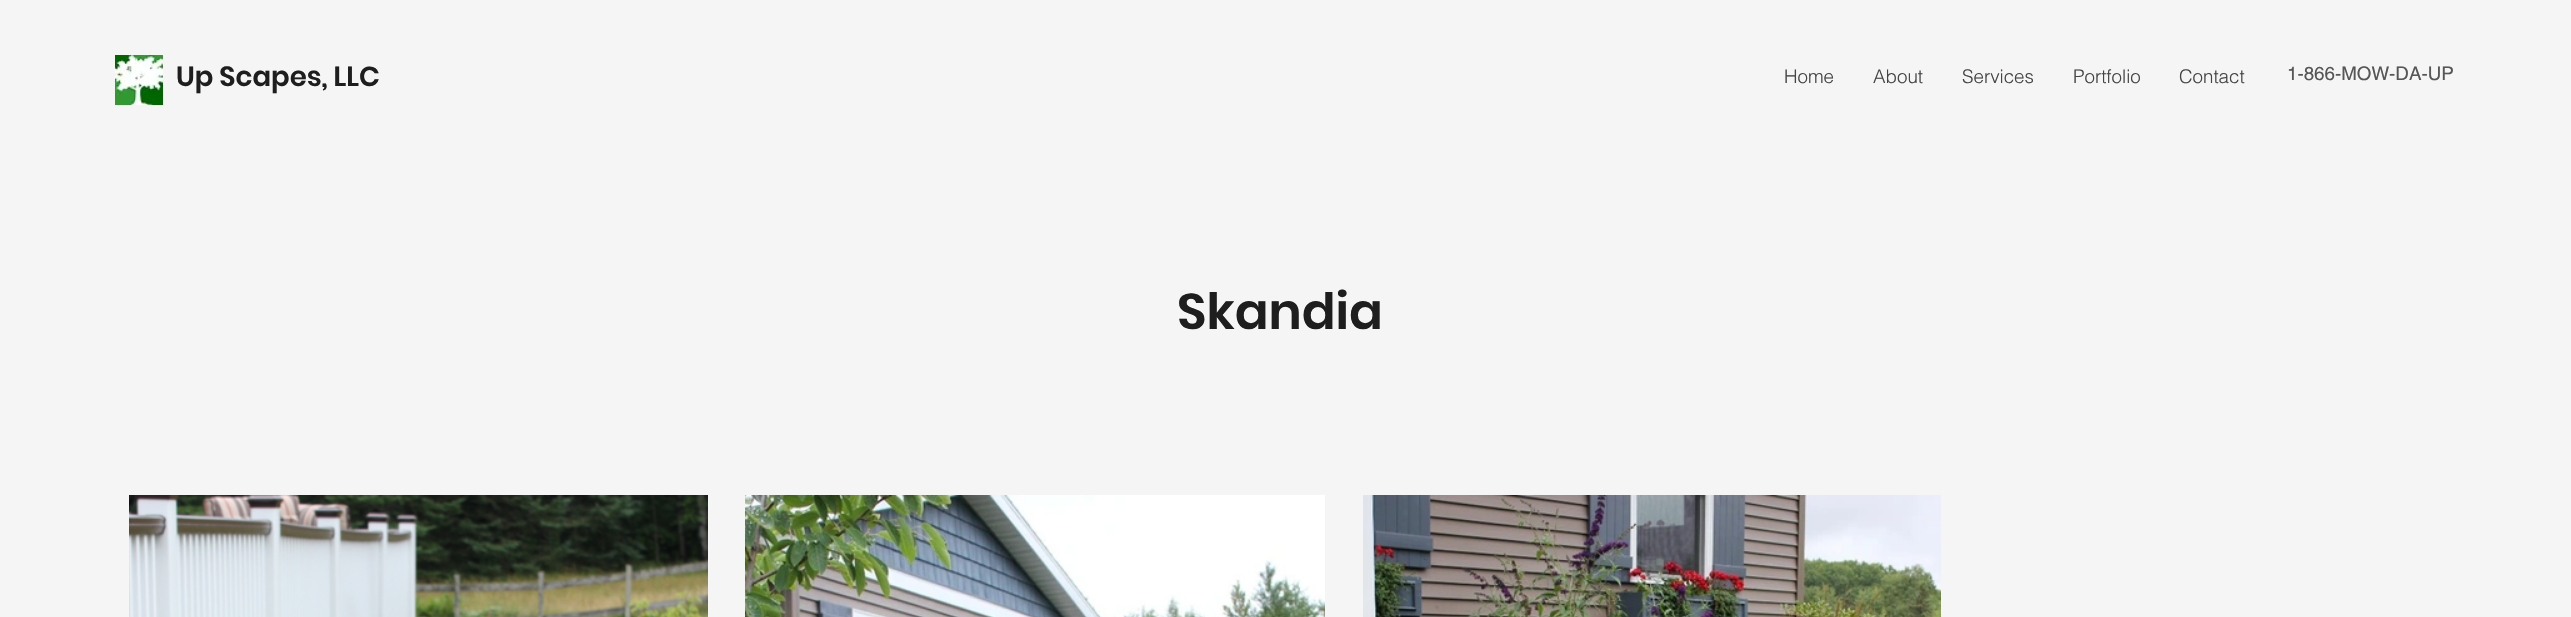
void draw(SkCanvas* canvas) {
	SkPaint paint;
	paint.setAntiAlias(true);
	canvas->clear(0xfff5f5f5);
	canvas->drawImageRect(SkImages::DeferredFromEncodedData(SkData::MakeFromFileName("img1.png")), SkRect::MakeXYWH(115, 55, 48, 50), SkSamplingOptions());
	SkFont f1(fontMgr->matchFamilyStyle("Poppins", SkFontStyle(600, SkFontStyle::kNormal_Width, SkFontStyle::kUpright_Slant)), 27.5);
	f1.setSubpixel(true);
	paint.setColor(0xff1e1e1e);
	canvas->drawString("Up Scapes, LLC", 176, 86, f1, paint);
	SkFont f2(fontMgr->matchFamilyStyle("helvetica", SkFontStyle(300, SkFontStyle::kNormal_Width, SkFontStyle::kUpright_Slant)), 18.75);
	f2.setSubpixel(true);
	paint.setColor(0xff444444);
	canvas->drawString("Home", 1784, 83, f2, paint);
	canvas->drawString("About", 1873, 83, f2, paint);
	canvas->drawString("Services", 1962, 83, f2, paint);
	canvas->drawString("Portfolio", 2073, 83, f2, paint);
	canvas->drawString("Contact", 2179, 83, f2, paint);
	SkFont f3(fontMgr->matchFamilyStyle("helvetica", SkFontStyle::Normal()), 18.75);
	f3.setSubpixel(true);
	paint.setColor(0xff565656);
	canvas->drawString("1-866-MOW-DA-UP", 2287, 80, f3, paint);
	SkFont f4(fontMgr->matchFamilyStyle("Poppins", SkFontStyle(600, SkFontStyle::kNormal_Width, SkFontStyle::kUpright_Slant)), 50);
	f4.setSubpixel(true);
	paint.setColor(0xff1e1e1e);
	canvas->drawString("Skandia", 1177, 329, f4, paint);
	canvas->drawImageRect(SkImages::DeferredFromEncodedData(SkData::MakeFromFileName("img2.png")), SkRect::MakeXYWH(129, 495, 579, 122), SkSamplingOptions());
	canvas->drawImageRect(SkImages::DeferredFromEncodedData(SkData::MakeFromFileName("img3.png")), SkRect::MakeXYWH(745, 495, 580, 122), SkSamplingOptions());
	canvas->drawImageRect(SkImages::DeferredFromEncodedData(SkData::MakeFromFileName("img4.png")), SkRect::MakeXYWH(1363, 495, 578, 122), SkSamplingOptions());
}
